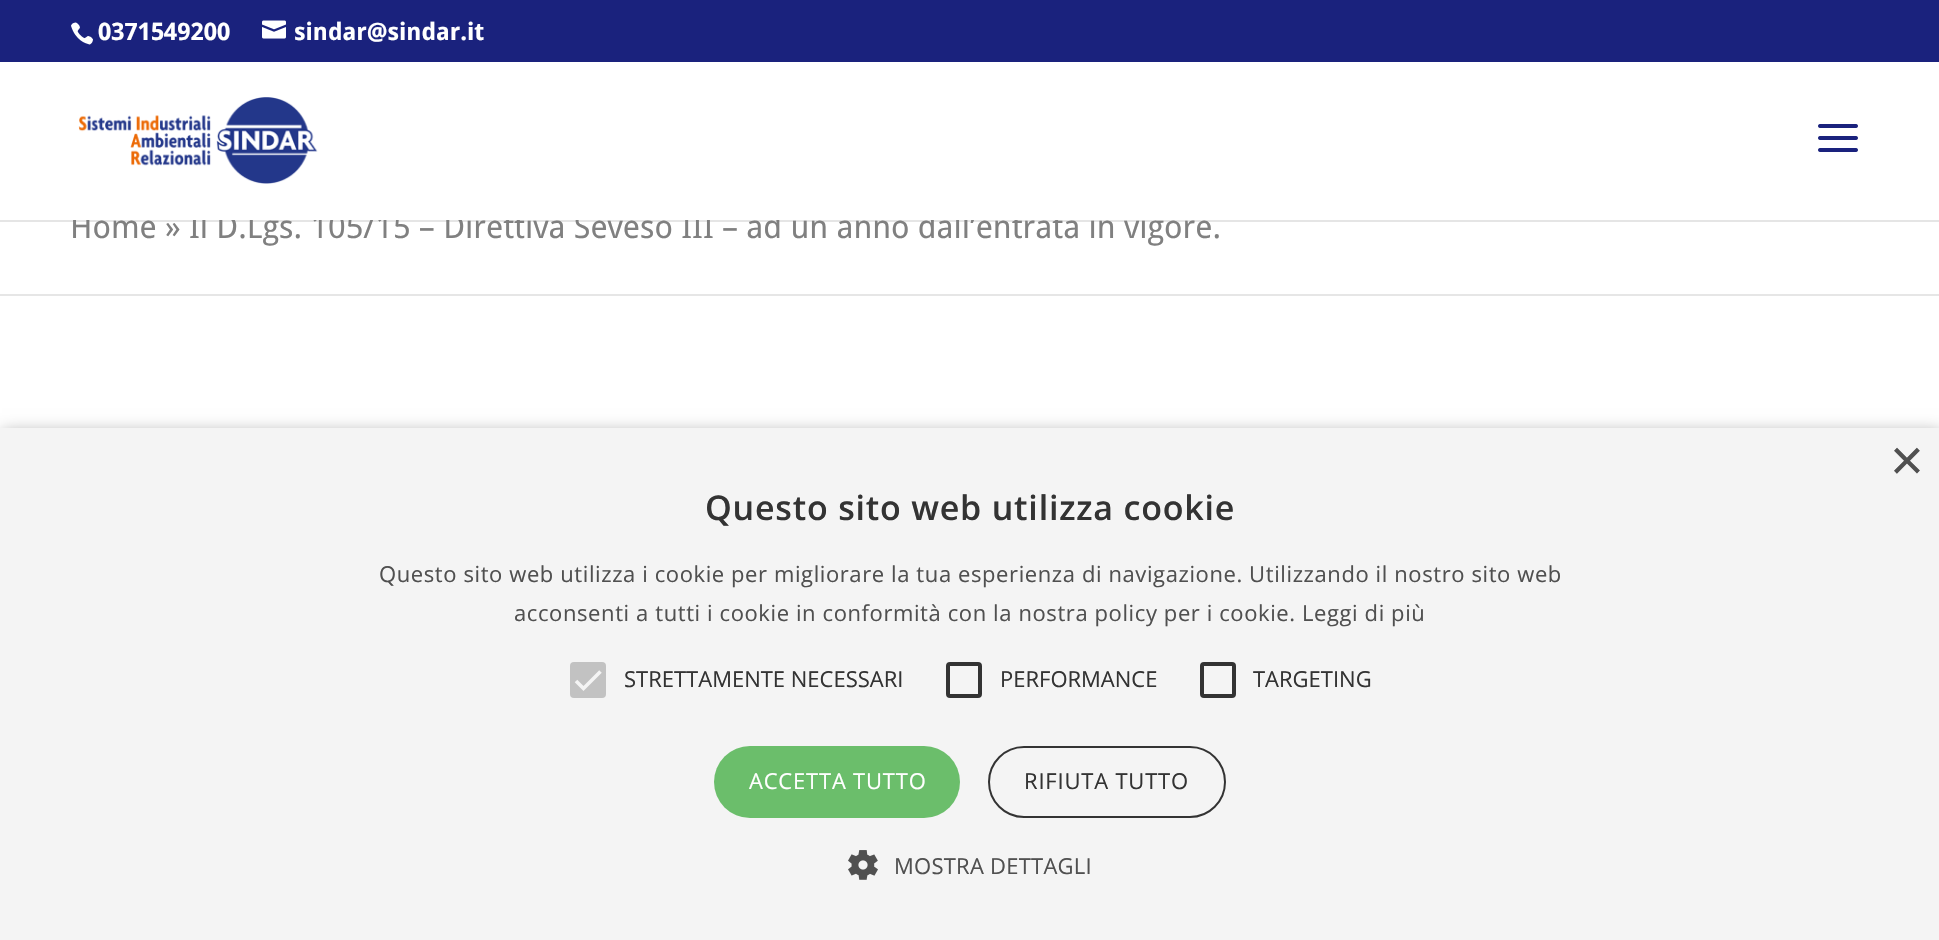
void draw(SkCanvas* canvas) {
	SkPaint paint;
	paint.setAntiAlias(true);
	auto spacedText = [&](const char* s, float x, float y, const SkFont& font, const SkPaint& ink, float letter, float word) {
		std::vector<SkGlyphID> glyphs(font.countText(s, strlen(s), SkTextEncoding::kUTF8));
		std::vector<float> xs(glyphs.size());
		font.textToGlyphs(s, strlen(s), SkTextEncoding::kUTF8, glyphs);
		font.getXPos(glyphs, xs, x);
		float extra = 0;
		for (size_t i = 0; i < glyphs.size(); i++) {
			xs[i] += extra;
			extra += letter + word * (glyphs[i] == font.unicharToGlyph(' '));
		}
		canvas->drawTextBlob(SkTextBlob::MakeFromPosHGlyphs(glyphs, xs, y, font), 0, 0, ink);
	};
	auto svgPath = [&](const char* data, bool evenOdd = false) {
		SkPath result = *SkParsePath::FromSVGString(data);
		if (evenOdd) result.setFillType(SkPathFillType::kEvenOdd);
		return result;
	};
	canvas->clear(0xffffffff);
	paint.setColor(0xff1a227d);
	canvas->drawRect(SkRect::MakeXYWH(0, 0, 1939, 62), paint);
	canvas->drawImageRect(SkImages::DeferredFromEncodedData(SkData::MakeFromFileName("img1.png")), SkRect::MakeXYWH(71, 22, 22, 23), SkSamplingOptions());
	SkFont f1(fontMgr->matchFamilyStyle("Droid Sans", SkFontStyle::Bold()), 24);
	f1.setSubpixel(true);
	paint.setColor(0xffffffff);
	canvas->drawString("0371549200", 98, 40, f1, paint);
	canvas->drawImageRect(SkImages::DeferredFromEncodedData(SkData::MakeFromFileName("img2.png")), SkRect::MakeXYWH(262, 20, 24, 19), SkSamplingOptions());
	canvas->drawString("sindar@sindar.it", 294, 40, f1, paint);
	paint.setColor(0x1a000000);
	canvas->drawRect(SkRect::MakeXYWH(0, 220, 1939, 2), paint);
	SkFont f2(fontMgr->matchFamilyStyle("Droid Sans", SkFontStyle::Normal()), 32);
	f2.setSubpixel(true);
	paint.setColor(0xff808080);
	canvas->drawString("Home » Il D.Lgs. 105/15 – Direttiva Seveso III – ad un anno dall’entrata in vigore.", 70, 238, f2, paint);
	paint.setColor(0xffffffff);
	canvas->drawRect(SkRect::MakeXYWH(73, 213, 1073, 7), paint);
	canvas->drawImageRect(SkImages::DeferredFromEncodedData(SkData::MakeFromFileName("img3.png")), SkRect::MakeXYWH(78, 97, 240, 87), SkSamplingOptions());
	canvas->drawImageRect(SkImages::DeferredFromEncodedData(SkData::MakeFromFileName("img4.png")), SkRect::MakeXYWH(1818, 124, 40, 28), SkSamplingOptions());
	paint.setColor(0xffe6e6e6);
	canvas->drawRect(SkRect::MakeXYWH(0, 294, 1939, 2), paint);
	paint.setColor(0x59000000);
	paint.setMaskFilter(SkMaskFilter::MakeBlur(kNormal_SkBlurStyle, 8));
	canvas->drawRect(SkRect::MakeXYWH(2, 432, 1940, 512), paint);
	paint.setMaskFilter(nullptr);
	paint.setColor(0xfff4f4f4);
	canvas->drawRect(SkRect::MakeXYWH(0, 428, 1939, 512), paint);
	SkFont f3(fontMgr->matchFamilyStyle("Liberation Sans", SkFontStyle::Normal()), 58);
	f3.setSubpixel(true);
	paint.setColor(0xff505050);
	canvas->drawString("×", 1890, 480, f3, paint);
	SkFont f4(fontMgr->matchFamilyStyle("Open Sans", SkFontStyle(600, SkFontStyle::kNormal_Width, SkFontStyle::kUpright_Slant)), 34);
	f4.setSubpixel(true);
	paint.setColor(0xff333333);
	spacedText("Questo sito web utilizza cookie", 705, 520, f4, paint, 0.8, 0);
	SkFont f5(fontMgr->matchFamilyStyle("Open Sans", SkFontStyle::Normal()), 22);
	f5.setSubpixel(true);
	paint.setColor(0xff505050);
	spacedText("Questo sito web utilizza i cookie per migliorare la tua esperienza di navigazione. Utilizzando il nostro sito web", 379, 582, f5, paint, 0.6, 0);
	spacedText("acconsenti a tutti i cookie in conformità con la nostra policy per i cookie. Leggi di più", 514, 621, f5, paint, 0.6, 0);
	paint.setColor(0xffc2c2c2);
	canvas->drawRoundRect(SkRect::MakeXYWH(570, 662, 36, 36), 4, 4, paint);
	paint.setStroke(true);
	paint.setStrokeWidth(3.6);
	paint.setColor(0xfff4f4f4);
	canvas->drawPath(svgPath("M576 681L583.5 688.5L600.5 671.5"), paint);
	paint.setStroke(false);
	paint.setColor(0xff333333);
	canvas->drawString("STRETTAMENTE NECESSARI", 624, 687, f5, paint);
	paint.setStroke(true);
	paint.setStrokeWidth(4);
	canvas->drawRoundRect(SkRect::MakeXYWH(948, 664, 32, 32), 2, 2, paint);
	paint.setStroke(false);
	canvas->drawString("PERFORMANCE", 1000, 687, f5, paint);
	paint.setStroke(true);
	canvas->drawRoundRect(SkRect::MakeXYWH(1202, 664, 32, 32), 2, 2, paint);
	paint.setStroke(false);
	canvas->drawString("TARGETING", 1253, 687, f5, paint);
	paint.setColor(0xff6bbe6b);
	canvas->drawRoundRect(SkRect::MakeXYWH(714, 746, 246, 72), 36, 36, paint);
	paint.setColor(0xffffffff);
	spacedText("ACCETTA TUTTO", 749, 789, f5, paint, 0.8, 0);
	paint.setStroke(true);
	paint.setStrokeWidth(2);
	paint.setColor(0xff333333);
	canvas->drawRoundRect(SkRect::MakeXYWH(989, 747, 236, 70), 35, 35, paint);
	paint.setStroke(false);
	spacedText("RIFIUTA TUTTO", 1024, 789, f5, paint, 0.8, 0);
	canvas->drawImageRect(SkImages::DeferredFromEncodedData(SkData::MakeFromFileName("img5.png")), SkRect::MakeXYWH(848, 850, 30, 30), SkSamplingOptions());
	paint.setColor(0xff505050);
	spacedText("MOSTRA DETTAGLI", 894, 874, f5, paint, 0.25, 0);
}
